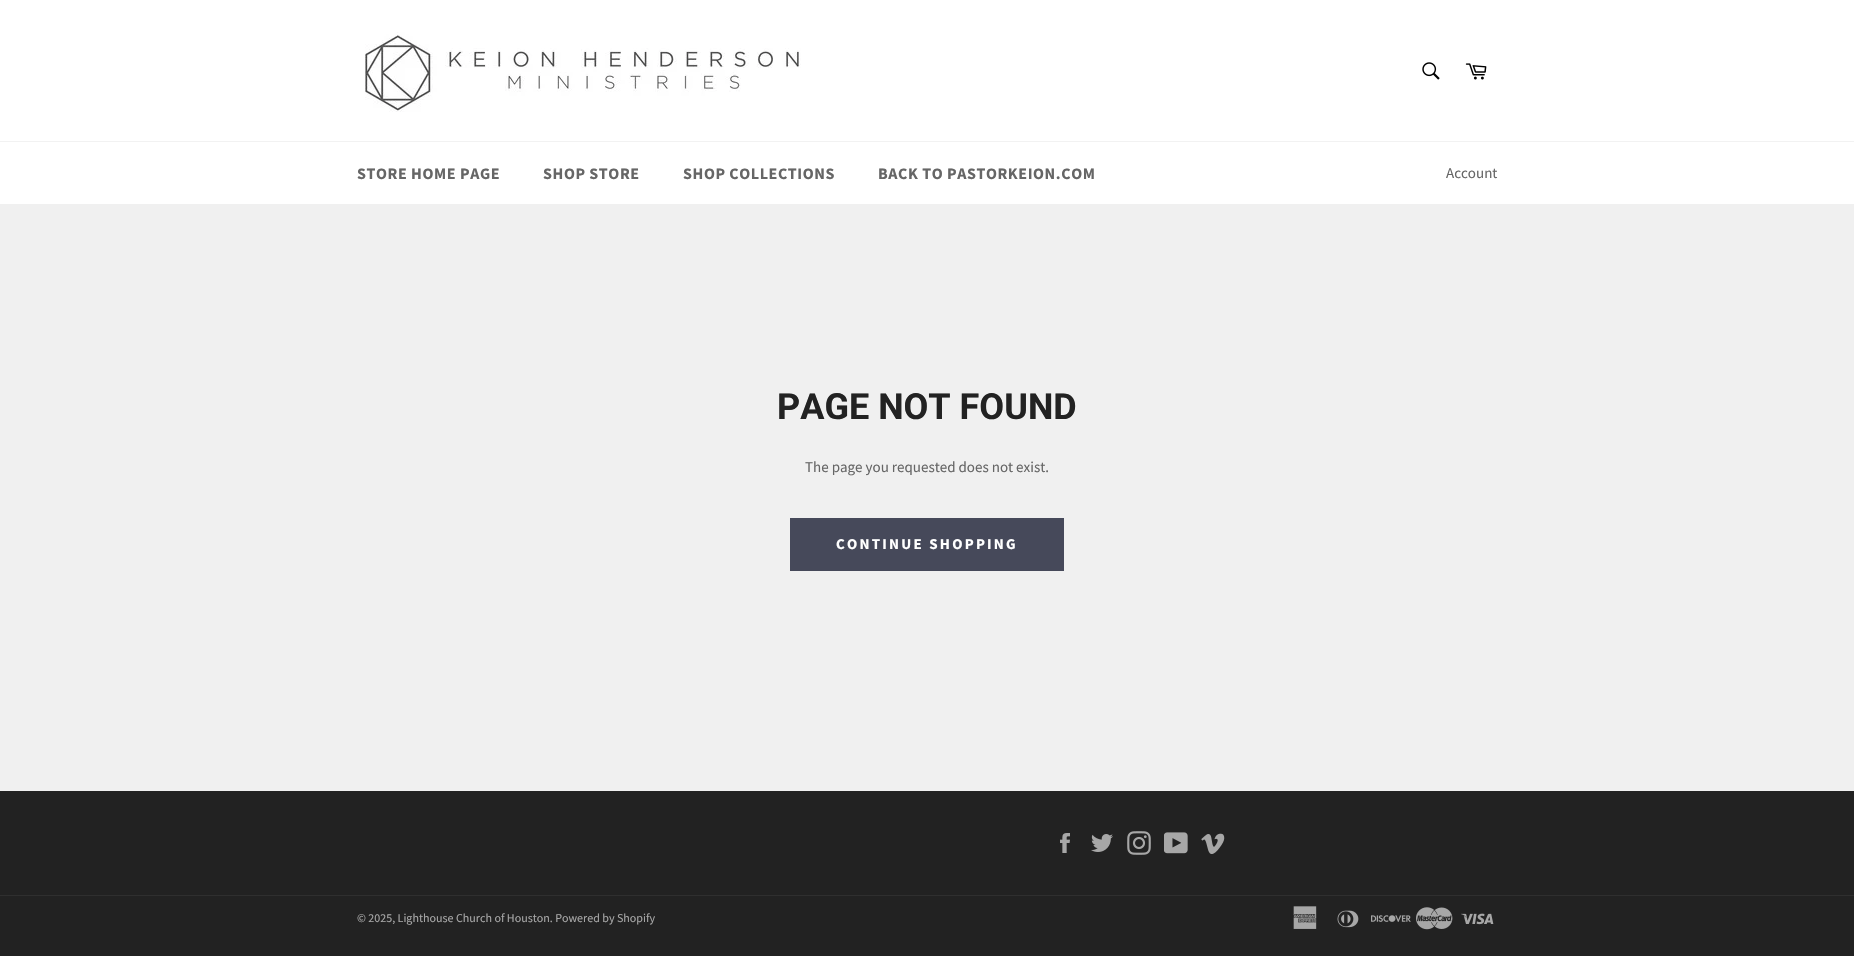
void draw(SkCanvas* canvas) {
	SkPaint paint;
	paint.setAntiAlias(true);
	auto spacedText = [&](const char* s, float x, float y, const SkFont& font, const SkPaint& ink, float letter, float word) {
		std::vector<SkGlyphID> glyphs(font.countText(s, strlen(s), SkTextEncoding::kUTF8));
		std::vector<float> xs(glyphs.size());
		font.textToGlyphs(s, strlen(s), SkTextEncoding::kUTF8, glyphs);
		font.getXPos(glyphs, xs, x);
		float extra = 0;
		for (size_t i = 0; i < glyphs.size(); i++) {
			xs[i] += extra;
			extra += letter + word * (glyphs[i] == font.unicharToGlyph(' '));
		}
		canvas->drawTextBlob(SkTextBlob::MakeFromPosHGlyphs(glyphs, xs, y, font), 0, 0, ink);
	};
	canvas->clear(0xff222222);
	paint.setColor(0xfff0f0f0);
	canvas->drawRect(SkRect::MakeXYWH(0, 204, 1854, 587), paint);
	paint.setColor(0xffffffff);
	canvas->drawRect(SkRect::MakeXYWH(0, 0, 1854, 141), paint);
	canvas->drawImageRect(SkImages::DeferredFromEncodedData(SkData::MakeFromFileName("img1.png")), SkRect::MakeXYWH(365, 32, 436, 80), SkSamplingOptions());
	canvas->drawImageRect(SkImages::DeferredFromEncodedData(SkData::MakeFromFileName("img2.png")), SkRect::MakeXYWH(1422, 62, 18, 18), SkSamplingOptions());
	canvas->drawImageRect(SkImages::DeferredFromEncodedData(SkData::MakeFromFileName("img3.png")), SkRect::MakeXYWH(1465, 63, 22, 17), SkSamplingOptions());
	canvas->drawRect(SkRect::MakeXYWH(0, 142, 1854, 62), paint);
	paint.setColor(0xfff2f2f2);
	canvas->drawRect(SkRect::MakeXYWH(0, 141, 1854, 1), paint);
	SkFont f1(fontMgr->matchFamilyStyle("Source Sans Pro", SkFontStyle::Bold()), 16);
	f1.setSubpixel(true);
	paint.setColor(0xff666666);
	spacedText("STORE HOME PAGE", 357, 179, f1, paint, 0.6, 0);
	spacedText("SHOP STORE", 543, 179, f1, paint, 0.6, 0);
	spacedText("SHOP COLLECTIONS", 683, 179, f1, paint, 0.6, 0);
	spacedText("BACK TO PASTORKEION.COM", 878, 179, f1, paint, 0.6, 0);
	SkFont f2(fontMgr->matchFamilyStyle("Source Sans Pro", SkFontStyle::Normal()), 15);
	f2.setSubpixel(true);
	canvas->drawString("Account", 1446, 178, f2, paint);
	SkFont f3(fontMgr->matchFamilyStyle("Roboto", SkFontStyle::Bold()), 36);
	f3.setSubpixel(true);
	paint.setColor(0xff222222);
	canvas->drawString("PAGE NOT FOUND", 777, 419, f3, paint);
	paint.setColor(0xff666666);
	canvas->drawString("The page you requested does not exist.", 805, 472, f2, paint);
	paint.setColor(0xff46495a);
	canvas->drawRect(SkRect::MakeXYWH(790, 518, 274, 53), paint);
	SkFont f4(fontMgr->matchFamilyStyle("Source Sans Pro", SkFontStyle::Bold()), 15);
	f4.setSubpixel(true);
	paint.setColor(0xffffffff);
	spacedText("CONTINUE SHOPPING", 836, 549, f4, paint, 2.25, 0);
	canvas->drawImageRect(SkImages::DeferredFromEncodedData(SkData::MakeFromFileName("img4.png")), SkRect::MakeXYWH(1060, 833, 10, 20), SkSamplingOptions());
	canvas->drawImageRect(SkImages::DeferredFromEncodedData(SkData::MakeFromFileName("img5.png")), SkRect::MakeXYWH(1091, 834, 22, 18), SkSamplingOptions());
	canvas->drawImageRect(SkImages::DeferredFromEncodedData(SkData::MakeFromFileName("img6.png")), SkRect::MakeXYWH(1127, 831, 24, 24), SkSamplingOptions());
	canvas->drawImageRect(SkImages::DeferredFromEncodedData(SkData::MakeFromFileName("img7.png")), SkRect::MakeXYWH(1164, 832, 24, 22), SkSamplingOptions());
	canvas->drawImageRect(SkImages::DeferredFromEncodedData(SkData::MakeFromFileName("img8.png")), SkRect::MakeXYWH(1201, 833, 24, 21), SkSamplingOptions());
	paint.setColor(0xff2f2f2f);
	canvas->drawRect(SkRect::MakeXYWH(0, 895, 1854, 1), paint);
	SkFont f5(fontMgr->matchFamilyStyle("Source Sans Pro", SkFontStyle::Normal()), 12);
	f5.setSubpixel(true);
	paint.setColor(0xffa7a7a7);
	canvas->drawString("© 2025, Lighthouse Church of Houston. Powered by Shopify", 357, 922, f5, paint);
	canvas->drawImageRect(SkImages::DeferredFromEncodedData(SkData::MakeFromFileName("img9.png")), SkRect::MakeXYWH(1293, 906, 24, 23), SkSamplingOptions());
	canvas->drawImageRect(SkImages::DeferredFromEncodedData(SkData::MakeFromFileName("img10.png")), SkRect::MakeXYWH(1337, 910, 22, 18), SkSamplingOptions());
	canvas->drawImageRect(SkImages::DeferredFromEncodedData(SkData::MakeFromFileName("img11.png")), SkRect::MakeXYWH(1371, 915, 40, 7), SkSamplingOptions());
	canvas->drawImageRect(SkImages::DeferredFromEncodedData(SkData::MakeFromFileName("img12.png")), SkRect::MakeXYWH(1416, 907, 37, 23), SkSamplingOptions());
	canvas->drawImageRect(SkImages::DeferredFromEncodedData(SkData::MakeFromFileName("img13.png")), SkRect::MakeXYWH(1461, 913, 33, 12), SkSamplingOptions());
}
